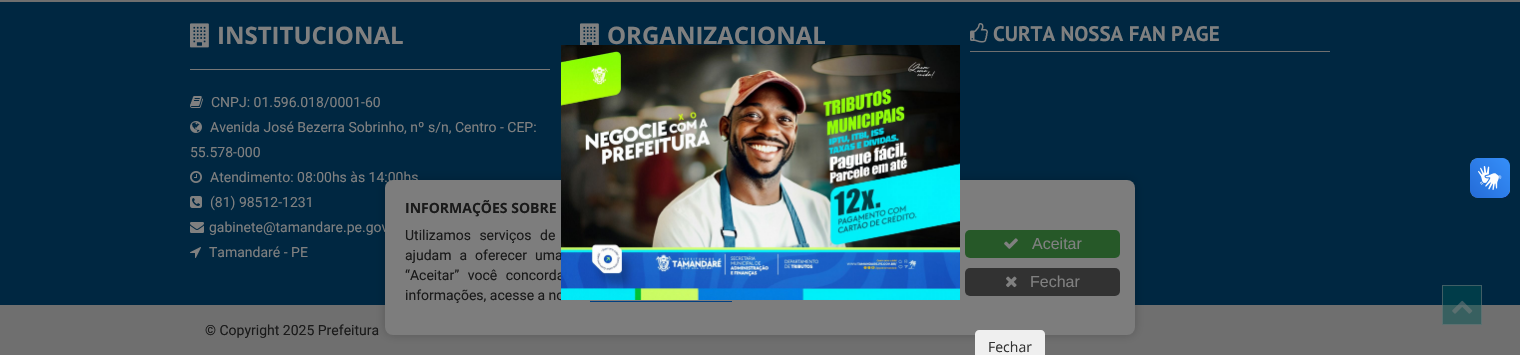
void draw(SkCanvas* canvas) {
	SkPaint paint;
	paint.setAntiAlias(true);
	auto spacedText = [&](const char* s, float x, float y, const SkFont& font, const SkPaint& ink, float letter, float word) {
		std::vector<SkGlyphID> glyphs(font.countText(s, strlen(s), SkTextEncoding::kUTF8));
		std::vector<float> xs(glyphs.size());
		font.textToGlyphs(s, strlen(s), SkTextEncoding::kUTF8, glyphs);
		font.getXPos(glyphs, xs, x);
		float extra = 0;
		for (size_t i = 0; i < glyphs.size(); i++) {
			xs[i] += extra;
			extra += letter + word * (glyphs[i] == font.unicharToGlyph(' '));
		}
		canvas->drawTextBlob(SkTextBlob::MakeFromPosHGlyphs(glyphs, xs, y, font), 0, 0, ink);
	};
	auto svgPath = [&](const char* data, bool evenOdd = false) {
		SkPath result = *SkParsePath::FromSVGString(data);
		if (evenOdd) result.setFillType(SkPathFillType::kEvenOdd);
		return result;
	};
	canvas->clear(0xff002741);
	paint.setColor(0xff003c49);
	canvas->drawRect(SkRect::MakeXYWH(1442, 285, 40, 20), paint);
	paint.setColor(0xff6f6f6f);
	canvas->drawRect(SkRect::MakeXYWH(0, 0, 1520, 2), paint);
	canvas->drawImageRect(SkImages::DeferredFromEncodedData(SkData::MakeFromFileName("img1.png")), SkRect::MakeXYWH(190, 23, 19, 25), SkSamplingOptions());
	SkFont f1(fontMgr->matchFamilyStyle("Open Sans", SkFontStyle::Bold()), 24);
	f1.setSubpixel(true);
	paint.setColor(0xff808080);
	canvas->drawString("INSTITUCIONAL", 217, 44, f1, paint);
	paint.setColor(0xff777777);
	canvas->drawRect(SkRect::MakeXYWH(190, 69, 360, 1), paint);
	canvas->drawImageRect(SkImages::DeferredFromEncodedData(SkData::MakeFromFileName("img2.png")), SkRect::MakeXYWH(190, 96, 13, 12), SkSamplingOptions());
	SkFont f2(fontMgr->matchFamilyStyle("Roboto", SkFontStyle::Normal()), 14);
	f2.setSubpixel(true);
	paint.setColor(0xff808080);
	canvas->drawString("CNPJ: 01.596.018/0001-60", 211, 107, f2, paint);
	canvas->drawImageRect(SkImages::DeferredFromEncodedData(SkData::MakeFromFileName("img3.png")), SkRect::MakeXYWH(190, 121, 12, 12), SkSamplingOptions());
	canvas->drawString("Avenida José Bezerra Sobrinho, nº s/n, Centro - CEP:", 210, 132, f2, paint);
	canvas->drawString("55.578-000", 190, 157, f2, paint);
	canvas->drawImageRect(SkImages::DeferredFromEncodedData(SkData::MakeFromFileName("img4.png")), SkRect::MakeXYWH(190, 171, 12, 12), SkSamplingOptions());
	canvas->drawString("Atendimento: 08:00hs às 14:00hs", 210, 182, f2, paint);
	canvas->drawImageRect(SkImages::DeferredFromEncodedData(SkData::MakeFromFileName("img5.png")), SkRect::MakeXYWH(190, 196, 12, 12), SkSamplingOptions());
	canvas->drawString("(81) 98512-1231", 210, 207, f2, paint);
	canvas->drawImageRect(SkImages::DeferredFromEncodedData(SkData::MakeFromFileName("img6.png")), SkRect::MakeXYWH(190, 222, 14, 11), SkSamplingOptions());
	canvas->drawString("gabinete@tamandare.pe.gov", 209, 232, f2, paint);
	canvas->drawImageRect(SkImages::DeferredFromEncodedData(SkData::MakeFromFileName("img7.png")), SkRect::MakeXYWH(190, 247, 11, 11), SkSamplingOptions());
	canvas->drawString("Tamandaré - PE", 209, 257, f2, paint);
	canvas->drawImageRect(SkImages::DeferredFromEncodedData(SkData::MakeFromFileName("img8.png")), SkRect::MakeXYWH(580, 23, 19, 22), SkSamplingOptions());
	canvas->drawString("ORGANIZACIONAL", 607, 44, f1, paint);
	paint.setColor(0xff6f6f6f);
	canvas->drawRect(SkRect::MakeXYWH(970, 51, 360, 1), paint);
	canvas->drawImageRect(SkImages::DeferredFromEncodedData(SkData::MakeFromFileName("img9.png")), SkRect::MakeXYWH(970, 23, 18, 20), SkSamplingOptions());
	SkFont f3(fontMgr->matchFamilyStyle("PT Sans", SkFontStyle::Bold()), 21);
	f3.setSubpixel(true);
	paint.setColor(0xff808080);
	canvas->drawString("CURTA NOSSA FAN PAGE", 993, 41, f3, paint);
	paint.setColor(0xff6f6f6f);
	canvas->drawRect(SkRect::MakeXYWH(0, 305, 1520, 50), paint);
	paint.setColor(0xff386060);
	canvas->drawRect(SkRect::MakeXYWH(1442, 305, 40, 20), paint);
	paint.setStroke(true);
	paint.setStrokeWidth(1);
	paint.setColor(0x80808080);
	canvas->drawRect(SkRect::MakeXYWH(1442.5, 285.5, 39, 39), paint);
	canvas->drawImageRect(SkImages::DeferredFromEncodedData(SkData::MakeFromFileName("img10.png")), SkRect::MakeXYWH(1452, 300, 21, 14), SkSamplingOptions());
	paint.setStroke(false);
	paint.setColor(0xff1a1a1a);
	canvas->drawString("© Copyright 2025 Prefeitura", 205, 335, f2, paint);
	canvas->drawImageRect(SkImages::DeferredFromEncodedData(SkData::MakeFromFileName("img11.png")), SkRect::MakeXYWH(1470, 158, 40, 40), SkSamplingOptions());
	canvas->drawImageRect(SkImages::DeferredFromEncodedData(SkData::MakeFromFileName("img12.png")), SkRect::MakeXYWH(1470, 158, 40, 40), SkSamplingOptions());
	paint.setColor(0x33000000);
	paint.setMaskFilter(SkMaskFilter::MakeBlur(kNormal_SkBlurStyle, 5));
	canvas->drawRoundRect(SkRect::MakeXYWH(385, 180, 750, 155), 8, 8, paint);
	paint.setMaskFilter(nullptr);
	paint.setColor(0xff7d7d7d);
	canvas->drawRoundRect(SkRect::MakeXYWH(385, 180, 750, 155), 8, 8, paint);
	SkFont f4(fontMgr->matchFamilyStyle("Open Sans", SkFontStyle::Bold()), 14);
	f4.setSubpixel(true);
	paint.setColor(0xff1a1a1a);
	canvas->drawString("INFORMAÇÕES SOBRE", 405, 213, f4, paint);
	spacedText("Utilizamos serviços de", 405, 240, f2, paint, 0, 5);
	spacedText("ajudam a oferecer uma", 405, 260, f2, paint, 0, 4.5);
	spacedText("“Aceitar” você concorda", 405, 280, f2, paint, 0, 5);
	canvas->drawString("informações, acesse a no", 405, 300, f2, paint);
	paint.setColor(0xff003e80);
	canvas->drawRect(SkRect::MakeXYWH(590, 301, 142, 1), paint);
	paint.setColor(0xff265828);
	canvas->drawRoundRect(SkRect::MakeXYWH(965, 230, 155, 28), 5, 5, paint);
	canvas->drawImageRect(SkImages::DeferredFromEncodedData(SkData::MakeFromFileName("img13.png")), SkRect::MakeXYWH(1004, 238, 14, 11), SkSamplingOptions());
	SkFont f5(fontMgr->matchFamilyStyle("Liberation Sans", SkFontStyle::Normal()), 16);
	f5.setSubpixel(true);
	paint.setColor(0xff808080);
	canvas->drawString("Aceitar", 1032, 249, f5, paint);
	paint.setColor(0xff323232);
	canvas->drawRoundRect(SkRect::MakeXYWH(965, 268, 155, 28), 5, 5, paint);
	canvas->drawImageRect(SkImages::DeferredFromEncodedData(SkData::MakeFromFileName("img14.png")), SkRect::MakeXYWH(1006, 276, 11, 12), SkSamplingOptions());
	paint.setColor(0xff808080);
	canvas->drawString("Fechar", 1030, 287, f5, paint);
	canvas->drawImageRect(SkImages::DeferredFromEncodedData(SkData::MakeFromFileName("img15.png")), SkRect::MakeXYWH(561, 45, 399, 255), SkSamplingOptions());
	paint.setColor(0xffefefef);
	canvas->drawPath(svgPath("M979 330H1041C1043 330 1045 332 1045 334V355H975V334C975 332 977 330 979 330Z"), paint);
	SkFont f6(fontMgr->matchFamilyStyle("Open Sans", SkFontStyle::Normal()), 14);
	f6.setSubpixel(true);
	paint.setColor(0xff333333);
	canvas->drawString("Fechar", 988, 352, f6, paint);
}
